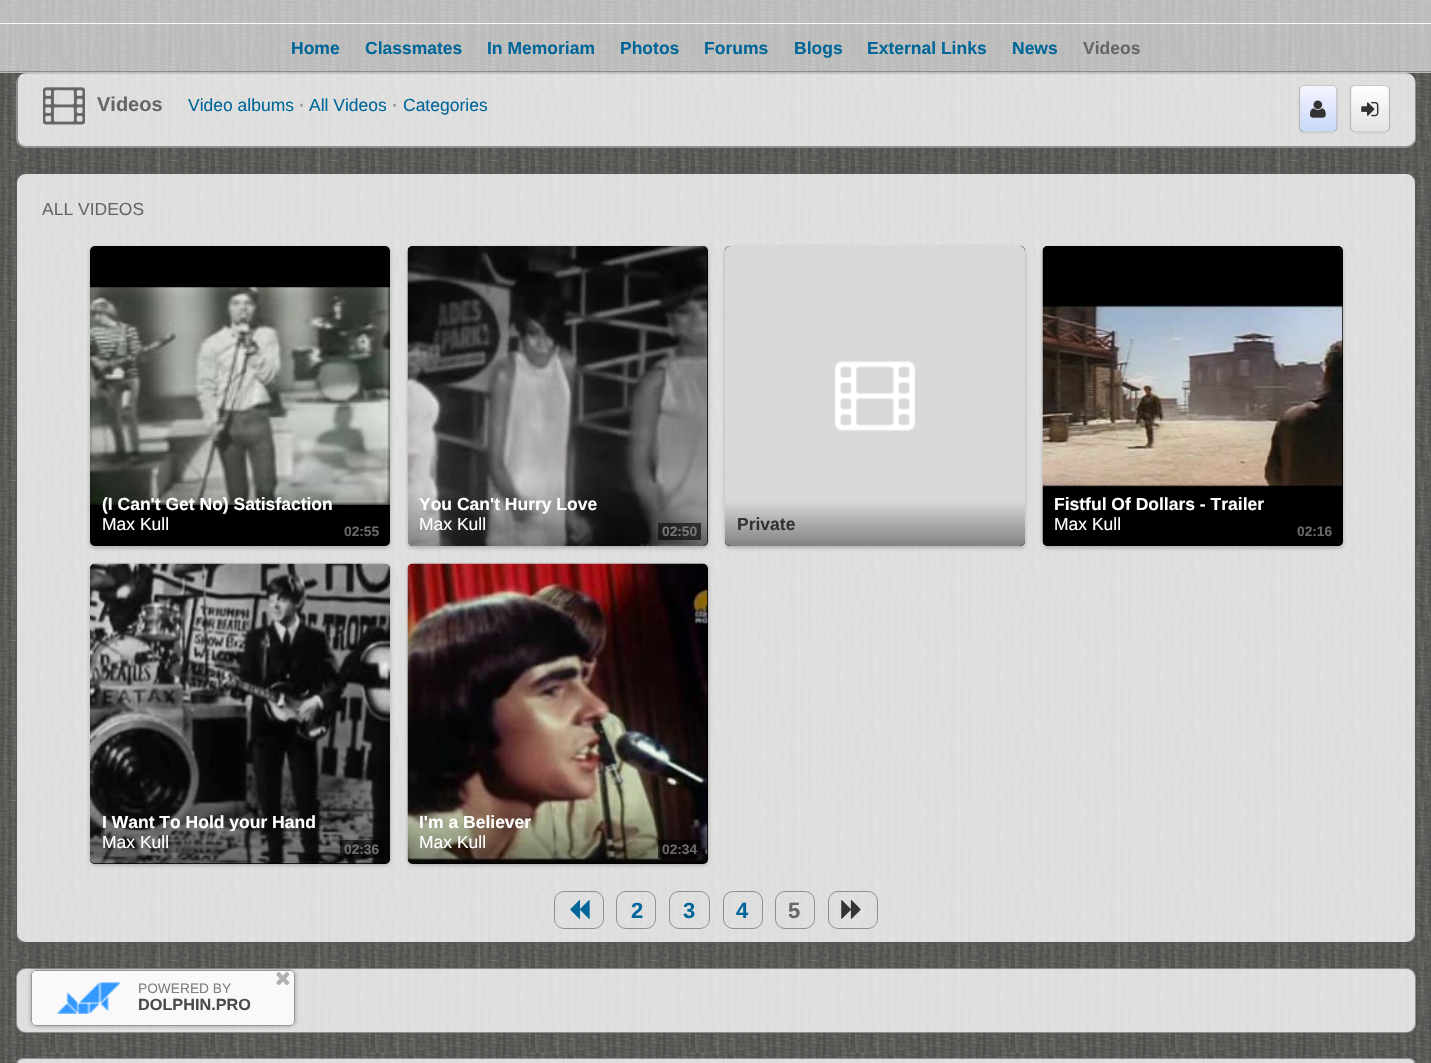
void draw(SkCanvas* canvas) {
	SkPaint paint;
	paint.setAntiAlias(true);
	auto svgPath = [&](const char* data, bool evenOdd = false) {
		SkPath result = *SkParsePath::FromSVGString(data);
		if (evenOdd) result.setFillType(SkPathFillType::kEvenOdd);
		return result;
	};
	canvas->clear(0xffffffff);
	canvas->drawImageRect(SkImages::DeferredFromEncodedData(SkData::MakeFromFileName("img1.png")), SkRect::MakeXYWH(0, 0, 1431, 1063), SkSamplingOptions());
	paint.setColor(0xccffffff);
	canvas->drawRoundRect(SkRect::MakeXYWH(16, 73, 1400, 75), 10, 10, paint);
	paint.setColor(0x80404040);
	canvas->drawPath(svgPath("M26 72H1406C1412 72 1416 77 1416 82V138C1416 143 1412 148 1406 148H26C21 148 16 143 16 138V82C16 77 21 72 26 72ZM26 72H1406C1411 72 1415 77 1415 82V138C1415 142 1411 146 1406 146H26C21 146 18 142 18 138V82C18 77 21 72 26 72Z", true), paint);
	canvas->save();
	canvas->clipPath(svgPath("M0 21H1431V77H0ZM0 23H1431V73H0Z", true), true);
	paint.setColor(0x26333333);
	paint.setMaskFilter(SkMaskFilter::MakeBlur(kNormal_SkBlurStyle, 0.5));
	canvas->drawRect(SkRect::MakeXYWH(0, 24, 1431, 50), paint);
	paint.setMaskFilter(nullptr);
	canvas->restore();
	paint.setColor(0x99ffffff);
	canvas->drawRect(SkRect::MakeXYWH(0, 0, 1431, 23), paint);
	paint.setColor(0xb3c0c0c0);
	canvas->drawRect(SkRect::MakeXYWH(0, 21, 1431, 1), paint);
	paint.setColor(0x99ffffff);
	canvas->drawRect(SkRect::MakeXYWH(0, 23, 1431, 50), paint);
	paint.setColor(0xe6ffffff);
	canvas->drawRect(SkRect::MakeXYWH(0, 23, 1431, 1), paint);
	paint.setColor(0x66404040);
	canvas->drawRect(SkRect::MakeXYWH(0, 71, 1431, 1), paint);
	SkFont f1(fontMgr->matchFamilyStyle("Liberation Sans", SkFontStyle::Bold()), 17.5);
	f1.setSubpixel(true);
	paint.setColor(0xff006699);
	canvas->drawString("Home", 291, 54, f1, paint);
	canvas->drawString("Classmates", 365, 54, f1, paint);
	canvas->drawString("In Memoriam", 487, 54, f1, paint);
	canvas->drawString("Photos", 620, 54, f1, paint);
	canvas->drawString("Forums", 704, 54, f1, paint);
	canvas->drawString("Blogs", 794, 54, f1, paint);
	canvas->drawString("External Links", 867, 54, f1, paint);
	canvas->drawString("News", 1012, 54, f1, paint);
	paint.setColor(0xff666666);
	canvas->drawString("Videos", 1083, 54, f1, paint);
	canvas->drawImageRect(SkImages::DeferredFromEncodedData(SkData::MakeFromFileName("img2.png")), SkRect::MakeXYWH(43, 87, 42, 38), SkSamplingOptions());
	SkFont f2(fontMgr->matchFamilyStyle("Liberation Sans", SkFontStyle::Bold()), 20);
	f2.setSubpixel(true);
	canvas->drawString("Videos", 97, 111, f2, paint);
	SkFont f3(fontMgr->matchFamilyStyle("Liberation Sans", SkFontStyle::Normal()), 17.5);
	f3.setSubpixel(true);
	paint.setColor(0xff006699);
	canvas->drawString("Video albums", 188, 111, f3, paint);
	paint.setColor(0xff999999);
	canvas->drawString("·", 299, 111, f1, paint);
	paint.setColor(0xff006699);
	canvas->drawString("All Videos", 309, 111, f3, paint);
	paint.setColor(0xff999999);
	canvas->drawString("·", 392, 111, f1, paint);
	paint.setColor(0xff006699);
	canvas->drawString("Categories", 403, 111, f3, paint);
	paint.setColor(0x1a808080);
	canvas->drawPath(svgPath("M1299 129C1299 132 1301 134 1304 134H1333C1336 134 1338 132 1338 129V91L1337 88L1338 128C1338 130 1335 132 1332 132H1304C1302 132 1300 131 1299 129Z"), paint);
	canvas->save();
	canvas->clipPath(svgPath("M1304 85H1333C1336 85 1338 87 1338 90V128C1338 131 1336 133 1333 133H1304C1301 133 1299 131 1299 128V90C1299 87 1301 85 1304 85Z"), true);
	{
		const SkColor colors[] = {0xfff5f5ff, 0xffc8d8f8};
		const float stops[] = {0, 1};
		const SkPoint ends[] = {{1318, 86}, {1318, 131}};
		paint.setShader(SkGradientShader::MakeLinear(ends, colors, stops, 2, SkTileMode::kClamp));
		paint.setAlpha(255);
	}
	canvas->drawRect(SkRect::MakeXYWH(1299, 86, 39, 45), paint);
	{
		const SkColor colors[] = {0xfff5f5ff, 0xffc8d8f8};
		const float stops[] = {0, 1};
		const SkPoint ends[] = {{1318, 131}, {1318, 176}};
		paint.setShader(SkGradientShader::MakeLinear(ends, colors, stops, 2, SkTileMode::kClamp));
		paint.setAlpha(255);
	}
	canvas->drawRect(SkRect::MakeXYWH(1299, 131, 39, 2), paint);
	canvas->restore();
	paint.setStroke(true);
	paint.setStrokeWidth(1.2);
	paint.setShader(nullptr);
	paint.setColor(0xffc8c8c8);
	canvas->drawPath(svgPath("M1300.5 87C1301.5 86 1302.5 85.5 1304 85.5H1332.5C1333.5 85.5 1335 86 1335.5 87"), paint);
	paint.setColor(0xffb8b8b8);
	canvas->drawPath(svgPath("M1335.5 87C1336.5 87.5 1337 89 1337 90V127.5C1337 128.5 1336.5 130 1335.5 130.5"), paint);
	paint.setColor(0xffa8a8a8);
	canvas->drawPath(svgPath("M1335.5 130.5C1335 131.5 1333.5 132 1332.5 132H1304C1302.5 132 1301.5 131.5 1300.5 130.5"), paint);
	paint.setColor(0xffb8b8b8);
	canvas->drawPath(svgPath("M1300.5 130.5C1300 130 1299.5 128.5 1299.5 127.5V90C1299.5 89 1300 87.5 1300.5 87"), paint);
	canvas->drawImageRect(SkImages::DeferredFromEncodedData(SkData::MakeFromFileName("img3.png")), SkRect::MakeXYWH(1310, 100, 16, 18), SkSamplingOptions());
	paint.setStroke(false);
	paint.setColor(0x1a808080);
	canvas->drawPath(svgPath("M1350 128C1350 135 1354 134 1360 134H1380C1386 134 1390 135 1390 128C1390 130 1388 132 1385 132H1355C1352 132 1350 130 1350 128Z"), paint);
	canvas->save();
	canvas->clipPath(svgPath("M1355 85H1385C1388 85 1390 87 1390 90V128C1390 131 1388 133 1385 133H1355C1352 133 1350 131 1350 128V90C1350 87 1352 85 1355 85Z"), true);
	{
		const SkColor colors[] = {0xffffffff, 0xffe3e3e3};
		const float stops[] = {0, 1};
		const SkPoint ends[] = {{1370, 86}, {1370, 131}};
		paint.setShader(SkGradientShader::MakeLinear(ends, colors, stops, 2, SkTileMode::kClamp));
		paint.setAlpha(255);
	}
	canvas->drawRect(SkRect::MakeXYWH(1350, 86, 40, 45), paint);
	{
		const SkColor colors[] = {0xffffffff, 0xffe3e3e3};
		const float stops[] = {0, 1};
		const SkPoint ends[] = {{1370, 131}, {1370, 176}};
		paint.setShader(SkGradientShader::MakeLinear(ends, colors, stops, 2, SkTileMode::kClamp));
		paint.setAlpha(255);
	}
	canvas->drawRect(SkRect::MakeXYWH(1350, 131, 40, 2), paint);
	canvas->restore();
	paint.setStroke(true);
	paint.setShader(nullptr);
	paint.setColor(0xffc8c8c8);
	canvas->drawPath(svgPath("M1352 87C1352.5 86 1354 85.5 1355 85.5H1385C1386 85.5 1387.5 86 1388 87"), paint);
	paint.setColor(0xffb8b8b8);
	canvas->drawPath(svgPath("M1388 87C1389 87.5 1389.5 89 1389.5 90V127.5C1389.5 128.5 1389 130 1388 130.5"), paint);
	paint.setColor(0xffa8a8a8);
	canvas->drawPath(svgPath("M1388 130.5C1387.5 131.5 1386 132 1385 132H1355C1354 132 1352.5 131.5 1352 130.5"), paint);
	paint.setColor(0xffb8b8b8);
	canvas->drawPath(svgPath("M1352 130.5C1351 130 1350.5 128.5 1350.5 127.5V90C1350.5 89 1351 87.5 1352 87"), paint);
	canvas->drawImageRect(SkImages::DeferredFromEncodedData(SkData::MakeFromFileName("img4.png")), SkRect::MakeXYWH(1361, 101, 18, 16), SkSamplingOptions());
	paint.setStroke(false);
	paint.setColor(0xccffffff);
	canvas->drawRoundRect(SkRect::MakeXYWH(16, 173, 1400, 770), 10, 10, paint);
	paint.setStroke(true);
	paint.setStrokeWidth(1);
	paint.setColor(0x99000000);
	canvas->drawRoundRect(SkRect::MakeXYWH(16.5, 173.5, 1399, 769), 9.5, 9.5, paint);
	paint.setStroke(false);
	paint.setColor(0xff666666);
	canvas->drawString("ALL VIDEOS", 42, 215, f3, paint);
	paint.setColor(0x4d333333);
	paint.setMaskFilter(SkMaskFilter::MakeBlur(kNormal_SkBlurStyle, 2));
	canvas->drawRoundRect(SkRect::MakeXYWH(90, 248, 300, 300), 5, 5, paint);
	paint.setMaskFilter(nullptr);
	paint.setColor(0xff000000);
	canvas->drawRoundRect(SkRect::MakeXYWH(90, 246, 300, 300), 5, 5, paint);
	canvas->drawImageRect(SkImages::DeferredFromEncodedData(SkData::MakeFromFileName("img5.png")), SkRect::MakeXYWH(90, 287, 300, 218), SkSamplingOptions());
	SkFont f4(fontMgr->matchFamilyStyle("Liberation Sans", SkFontStyle::Bold()), 13.75);
	f4.setSubpixel(true);
	paint.setColor(0xff999999);
	canvas->drawString("02:55", 344, 536, f4, paint);
	{
		const SkColor colors[] = {0x00000000, 0x66000000};
		const float stops[] = {0, 1};
		const SkPoint ends[] = {{240, 481}, {240, 546}};
		paint.setShader(SkGradientShader::MakeLinear(ends, colors, stops, 2, SkTileMode::kClamp));
		paint.setAlpha(255);
	}
	canvas->drawPath(svgPath("M90 481H390V541C390 544 388 546 385 546H95C92 546 90 544 90 541Z"), paint);
	paint.setShader(nullptr);
	paint.setColor(0xffffffff);
	canvas->drawString("(I Can't Get No) Satisfaction", 102, 510, f1, paint);
	canvas->drawString("Max Kull", 102, 530, f3, paint);
	paint.setColor(0x4d333333);
	paint.setMaskFilter(SkMaskFilter::MakeBlur(kNormal_SkBlurStyle, 2));
	canvas->drawRoundRect(SkRect::MakeXYWH(408, 248, 300, 300), 5, 5, paint);
	paint.setMaskFilter(nullptr);
	paint.setColor(0xff000000);
	canvas->drawRoundRect(SkRect::MakeXYWH(408, 246, 300, 300), 5, 5, paint);
	canvas->drawImageRect(SkImages::DeferredFromEncodedData(SkData::MakeFromFileName("img6.png")), SkRect::MakeXYWH(407, 246, 301, 300), SkSamplingOptions());
	paint.setColor(0x99000000);
	canvas->drawRect(SkRect::MakeXYWH(658, 523, 43, 17), paint);
	paint.setColor(0xffadadad);
	canvas->drawString("02:50", 662, 536, f4, paint);
	{
		const SkColor colors[] = {0x00000000, 0x66000000};
		const float stops[] = {0, 1};
		const SkPoint ends[] = {{558, 481}, {558, 546}};
		paint.setShader(SkGradientShader::MakeLinear(ends, colors, stops, 2, SkTileMode::kClamp));
		paint.setAlpha(255);
	}
	canvas->drawPath(svgPath("M408 481H708V541C708 544 706 546 703 546H413C410 546 408 544 408 541Z"), paint);
	paint.setShader(nullptr);
	paint.setColor(0xffffffff);
	canvas->drawString("You Can't Hurry Love", 419, 510, f1, paint);
	canvas->drawString("Max Kull", 419, 530, f3, paint);
	paint.setColor(0x4d333333);
	paint.setMaskFilter(SkMaskFilter::MakeBlur(kNormal_SkBlurStyle, 2));
	canvas->drawRoundRect(SkRect::MakeXYWH(725, 248, 300, 300), 5, 5, paint);
	paint.setMaskFilter(nullptr);
	paint.setColor(0xff000000);
	canvas->drawRoundRect(SkRect::MakeXYWH(725, 246, 300, 300), 5, 5, paint);
	canvas->drawImageRect(SkImages::DeferredFromEncodedData(SkData::MakeFromFileName("img7.png")), SkRect::MakeXYWH(725, 246, 300, 300), SkSamplingOptions());
	{
		const SkColor colors[] = {0x00000000, 0x66000000};
		const float stops[] = {0, 1};
		const SkPoint ends[] = {{875, 501}, {875, 546}};
		paint.setShader(SkGradientShader::MakeLinear(ends, colors, stops, 2, SkTileMode::kClamp));
		paint.setAlpha(255);
	}
	canvas->drawPath(svgPath("M725 501H1025V541C1025 544 1023 546 1020 546H730C727 546 725 544 725 541Z"), paint);
	paint.setShader(nullptr);
	paint.setColor(0xff333333);
	canvas->drawString("Private", 737, 530, f1, paint);
	paint.setColor(0x4d333333);
	paint.setMaskFilter(SkMaskFilter::MakeBlur(kNormal_SkBlurStyle, 2));
	canvas->drawRoundRect(SkRect::MakeXYWH(1043, 248, 300, 300), 5, 5, paint);
	paint.setMaskFilter(nullptr);
	paint.setColor(0xff000000);
	canvas->drawRoundRect(SkRect::MakeXYWH(1043, 246, 300, 300), 5, 5, paint);
	canvas->drawImageRect(SkImages::DeferredFromEncodedData(SkData::MakeFromFileName("img8.png")), SkRect::MakeXYWH(1042, 246, 301, 300), SkSamplingOptions());
	paint.setColor(0xff999999);
	canvas->drawString("02:16", 1297, 536, f4, paint);
	{
		const SkColor colors[] = {0x00000000, 0x66000000};
		const float stops[] = {0, 1};
		const SkPoint ends[] = {{1193, 481}, {1193, 546}};
		paint.setShader(SkGradientShader::MakeLinear(ends, colors, stops, 2, SkTileMode::kClamp));
		paint.setAlpha(255);
	}
	canvas->drawPath(svgPath("M1043 481H1343V541C1343 544 1341 546 1338 546H1048C1045 546 1043 544 1043 541Z"), paint);
	paint.setShader(nullptr);
	paint.setColor(0xffffffff);
	canvas->drawString("Fistful Of Dollars - Trailer", 1054, 510, f1, paint);
	canvas->drawString("Max Kull", 1054, 530, f3, paint);
	paint.setColor(0x4d333333);
	paint.setMaskFilter(SkMaskFilter::MakeBlur(kNormal_SkBlurStyle, 2));
	canvas->drawRoundRect(SkRect::MakeXYWH(90, 565, 300, 300), 5, 5, paint);
	paint.setMaskFilter(nullptr);
	paint.setColor(0xff000000);
	canvas->drawRoundRect(SkRect::MakeXYWH(90, 564, 300, 300), 5, 5, paint);
	canvas->drawImageRect(SkImages::DeferredFromEncodedData(SkData::MakeFromFileName("img9.png")), SkRect::MakeXYWH(90, 563, 300, 301), SkSamplingOptions());
	paint.setColor(0x99000000);
	canvas->drawRect(SkRect::MakeXYWH(340, 840, 44, 18), paint);
	paint.setColor(0xffa4a4a4);
	canvas->drawString("02:36", 344, 854, f4, paint);
	{
		const SkColor colors[] = {0x00000000, 0x66000000};
		const float stops[] = {0, 1};
		const SkPoint ends[] = {{240, 799}, {240, 864}};
		paint.setShader(SkGradientShader::MakeLinear(ends, colors, stops, 2, SkTileMode::kClamp));
		paint.setAlpha(255);
	}
	canvas->drawPath(svgPath("M90 799H390V859C390 862 388 864 385 864H95C92 864 90 862 90 859Z"), paint);
	canvas->save();
	canvas->clipRect(SkRect::MakeXYWH(90, 811, 300, 20));
	paint.setShader(nullptr);
	paint.setColor(0xffffffff);
	canvas->drawString("I Want To Hold your Hand", 102, 828, f1, paint);
	canvas->restore();
	canvas->drawString("Max Kull", 102, 848, f3, paint);
	paint.setColor(0x4d333333);
	paint.setMaskFilter(SkMaskFilter::MakeBlur(kNormal_SkBlurStyle, 2));
	canvas->drawRoundRect(SkRect::MakeXYWH(408, 565, 300, 300), 5, 5, paint);
	paint.setMaskFilter(nullptr);
	paint.setColor(0xff000000);
	canvas->drawRoundRect(SkRect::MakeXYWH(408, 564, 300, 300), 5, 5, paint);
	canvas->drawImageRect(SkImages::DeferredFromEncodedData(SkData::MakeFromFileName("img10.png")), SkRect::MakeXYWH(407, 563, 301, 301), SkSamplingOptions());
	paint.setColor(0x99000000);
	canvas->drawRect(SkRect::MakeXYWH(658, 840, 43, 18), paint);
	paint.setColor(0xff999999);
	canvas->drawString("02:34", 662, 854, f4, paint);
	{
		const SkColor colors[] = {0x00000000, 0x66000000};
		const float stops[] = {0, 1};
		const SkPoint ends[] = {{558, 799}, {558, 864}};
		paint.setShader(SkGradientShader::MakeLinear(ends, colors, stops, 2, SkTileMode::kClamp));
		paint.setAlpha(255);
	}
	canvas->drawPath(svgPath("M408 799H708V859C708 862 706 864 703 864H413C410 864 408 862 408 859Z"), paint);
	paint.setShader(nullptr);
	paint.setColor(0xffffffff);
	canvas->drawString("I'm a Believer", 419, 828, f1, paint);
	canvas->drawString("Max Kull", 419, 848, f3, paint);
	paint.setStroke(true);
	paint.setColor(0x80404040);
	canvas->drawRoundRect(SkRect::MakeXYWH(554.5, 891.5, 49, 37), 9.5, 9.5, paint);
	canvas->drawImageRect(SkImages::DeferredFromEncodedData(SkData::MakeFromFileName("img11.png")), SkRect::MakeXYWH(570, 899, 20, 20), SkSamplingOptions());
	canvas->drawRoundRect(SkRect::MakeXYWH(616.5, 891.5, 39, 37), 9.5, 9.5, paint);
	SkFont f5(fontMgr->matchFamilyStyle("Liberation Sans", SkFontStyle::Bold()), 22);
	f5.setSubpixel(true);
	paint.setStroke(false);
	paint.setColor(0xff006699);
	canvas->drawString("2", 631, 918, f5, paint);
	paint.setStroke(true);
	paint.setColor(0x80404040);
	canvas->drawRoundRect(SkRect::MakeXYWH(669.5, 891.5, 40, 37), 9.5, 9.5, paint);
	paint.setStroke(false);
	paint.setColor(0xff006699);
	canvas->drawString("3", 683, 918, f5, paint);
	paint.setStroke(true);
	paint.setColor(0x80404040);
	canvas->drawRoundRect(SkRect::MakeXYWH(723.5, 891.5, 39, 37), 9.5, 9.5, paint);
	paint.setStroke(false);
	paint.setColor(0xff006699);
	canvas->drawString("4", 736, 918, f5, paint);
	paint.setStroke(true);
	paint.setColor(0x80404040);
	canvas->drawRoundRect(SkRect::MakeXYWH(775.5, 891.5, 39, 37), 9.5, 9.5, paint);
	paint.setStroke(false);
	paint.setColor(0xff666666);
	canvas->drawString("5", 788, 918, f5, paint);
	paint.setStroke(true);
	paint.setColor(0x80404040);
	canvas->drawRoundRect(SkRect::MakeXYWH(828.5, 891.5, 49, 37), 9.5, 9.5, paint);
	canvas->drawImageRect(SkImages::DeferredFromEncodedData(SkData::MakeFromFileName("img12.png")), SkRect::MakeXYWH(841, 899, 20, 20), SkSamplingOptions());
	paint.setStroke(false);
	paint.setColor(0xccffffff);
	canvas->drawRoundRect(SkRect::MakeXYWH(16, 968, 1400, 65), 10, 10, paint);
	paint.setStroke(true);
	paint.setColor(0x80404040);
	canvas->drawRoundRect(SkRect::MakeXYWH(16.5, 968.5, 1399, 64), 9.5, 9.5, paint);
	canvas->save();
	canvas->clipPath(svgPath("M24 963H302V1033H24ZM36 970H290C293 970 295 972 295 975V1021C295 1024 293 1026 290 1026H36C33 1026 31 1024 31 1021V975C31 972 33 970 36 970Z", true), true);
	paint.setStroke(false);
	paint.setColor(0x66333333);
	paint.setMaskFilter(SkMaskFilter::MakeBlur(kNormal_SkBlurStyle, 2));
	canvas->drawRoundRect(SkRect::MakeXYWH(31, 970, 264, 56), 5, 5, paint);
	paint.setMaskFilter(nullptr);
	canvas->restore();
	paint.setColor(0xccffffff);
	canvas->drawRoundRect(SkRect::MakeXYWH(31, 970, 264, 56), 5, 5, paint);
	paint.setStroke(true);
	paint.setColor(0xcc808080);
	canvas->drawRoundRect(SkRect::MakeXYWH(31.5, 970.5, 263, 55), 4.5, 4.5, paint);
	canvas->drawImageRect(SkImages::DeferredFromEncodedData(SkData::MakeFromFileName("img13.png")), SkRect::MakeXYWH(276, 972, 14, 14), SkSamplingOptions());
	canvas->drawImageRect(SkImages::DeferredFromEncodedData(SkData::MakeFromFileName("img14.png")), SkRect::MakeXYWH(57, 982, 63, 32), SkSamplingOptions());
	SkFont f6(fontMgr->matchFamilyStyle("Liberation Sans", SkFontStyle::Normal()), 13.75);
	f6.setSubpixel(true);
	paint.setStroke(false);
	paint.setColor(0xff7f7f7f);
	canvas->drawString("POWERED BY", 138, 993, f6, paint);
	SkFont f7(fontMgr->matchFamilyStyle("Liberation Sans", SkFontStyle::Bold()), 16.25);
	f7.setSubpixel(true);
	paint.setColor(0xff4a4a4a);
	canvas->drawString("DOLPHIN.PRO", 138, 1010, f7, paint);
	paint.setColor(0xccffffff);
	canvas->drawRoundRect(SkRect::MakeXYWH(16, 1058, 1400, 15), 10, 10, paint);
	paint.setStroke(true);
	paint.setColor(0x80404040);
	canvas->drawRoundRect(SkRect::MakeXYWH(16.5, 1058.5, 1399, 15), 9.5, 9.5, paint);
}
